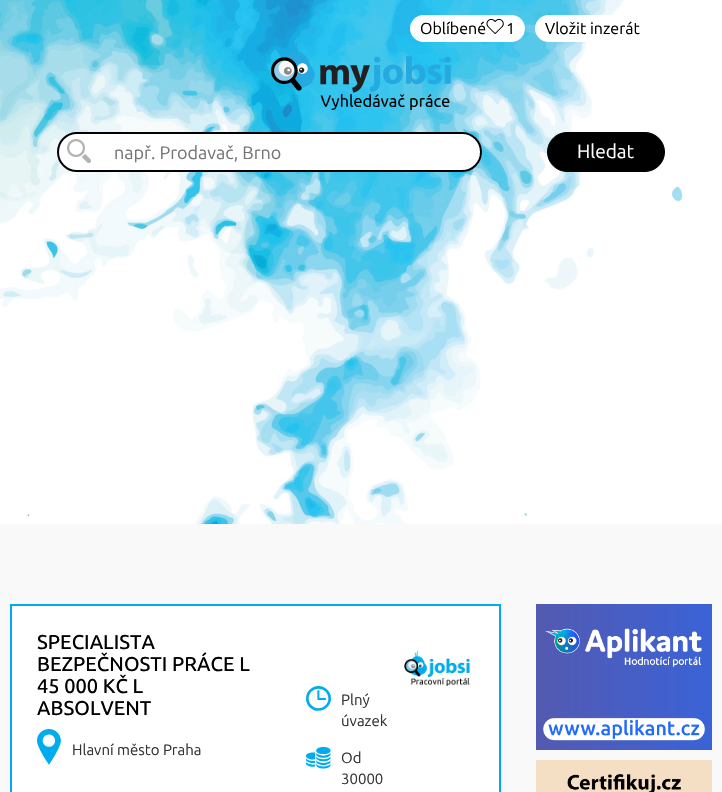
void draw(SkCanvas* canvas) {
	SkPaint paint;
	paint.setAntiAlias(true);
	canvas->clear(0xffffffff);
	canvas->drawImageRect(SkImages::DeferredFromEncodedData(SkData::MakeFromFileName("img1.png")), SkRect::MakeXYWH(0, 0, 722, 524), SkSamplingOptions());
	paint.setColor(0xffffffff);
	canvas->drawRoundRect(SkRect::MakeXYWH(410, 15, 115, 27), 13.5, 13.5, paint);
	SkFont f1(fontMgr->matchFamilyStyle("Ubuntu", SkFontStyle::Normal()), 16);
	f1.setSubpixel(true);
	paint.setColor(0xff000000);
	canvas->drawString("Oblíbené", 420, 34, f1, paint);
	canvas->drawImageRect(SkImages::DeferredFromEncodedData(SkData::MakeFromFileName("img2.png")), SkRect::MakeXYWH(486, 19, 18, 15), SkSamplingOptions());
	canvas->drawString("1", 506, 34, f1, paint);
	paint.setColor(0xffffffff);
	canvas->drawRoundRect(SkRect::MakeXYWH(535, 15, 115, 27), 13.5, 13.5, paint);
	paint.setColor(0xff000000);
	canvas->drawString("Vložit inzerát", 545, 34, f1, paint);
	canvas->drawImageRect(SkImages::DeferredFromEncodedData(SkData::MakeFromFileName("img3.png")), SkRect::MakeXYWH(271, 42, 180, 68), SkSamplingOptions());
	paint.setColor(0xffffffff);
	canvas->drawRoundRect(SkRect::MakeXYWH(57, 132, 425, 40), 20, 20, paint);
	canvas->drawImageRect(SkImages::DeferredFromEncodedData(SkData::MakeFromFileName("img4.png")), SkRect::MakeXYWH(67, 139, 24, 24), SkSamplingOptions());
	paint.setStroke(true);
	paint.setStrokeWidth(2);
	paint.setColor(0xff000000);
	canvas->drawRoundRect(SkRect::MakeXYWH(58, 133, 423, 38), 19, 19, paint);
	SkFont f2(fontMgr->matchFamilyStyle("Ubuntu", SkFontStyle::Normal()), 18);
	f2.setSubpixel(true);
	paint.setStroke(false);
	paint.setColor(0xff757575);
	canvas->drawString("např. Prodavač, Brno", 114, 159, f2, paint);
	paint.setColor(0xff000000);
	canvas->drawRoundRect(SkRect::MakeXYWH(547.5, 132.5, 117, 39), 19.5, 19.5, paint);
	paint.setStroke(true);
	paint.setStrokeWidth(1);
	canvas->drawRoundRect(SkRect::MakeXYWH(547.5, 132.5, 117, 39), 19.5, 19.5, paint);
	SkFont f3(fontMgr->matchFamilyStyle("Ubuntu", SkFontStyle::Normal()), 19);
	f3.setSubpixel(true);
	paint.setStroke(false);
	paint.setColor(0xffffffff);
	canvas->drawString("Hledat", 577, 158, f3, paint);
	paint.setColor(0xfff9f9f9);
	canvas->drawRect(SkRect::MakeXYWH(0, 524, 722, 268), paint);
	paint.setColor(0xffffffff);
	canvas->drawRect(SkRect::MakeXYWH(11, 605, 489, 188), paint);
	paint.setStroke(true);
	paint.setStrokeWidth(2);
	paint.setColor(0xff00aced);
	canvas->drawRect(SkRect::MakeXYWH(11, 605, 489, 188), paint);
	SkFont f4(fontMgr->matchFamilyStyle("Ubuntu", SkFontStyle(500, SkFontStyle::kNormal_Width, SkFontStyle::kUpright_Slant)), 20);
	f4.setSubpixel(true);
	paint.setStroke(false);
	paint.setColor(0xff000000);
	canvas->drawString("SPECIALISTA", 37, 649, f4, paint);
	canvas->drawString("BEZPEČNOSTI PRÁCE L", 37, 671, f4, paint);
	canvas->drawString("45 000 KČ L", 37, 693, f4, paint);
	canvas->drawString("ABSOLVENT", 37, 715, f4, paint);
	canvas->drawImageRect(SkImages::DeferredFromEncodedData(SkData::MakeFromFileName("img5.png")), SkRect::MakeXYWH(37, 729, 24, 36), SkSamplingOptions());
	SkFont f5(fontMgr->matchFamilyStyle("Ubuntu", SkFontStyle::Normal()), 15);
	f5.setSubpixel(true);
	paint.setColor(0xff333333);
	canvas->drawString("Hlavní město Praha", 72, 755, f5, paint);
	canvas->drawImageRect(SkImages::DeferredFromEncodedData(SkData::MakeFromFileName("img6.png")), SkRect::MakeXYWH(404, 650, 66, 36), SkSamplingOptions());
	canvas->drawImageRect(SkImages::DeferredFromEncodedData(SkData::MakeFromFileName("img7.png")), SkRect::MakeXYWH(306, 686, 25, 25), SkSamplingOptions());
	canvas->drawString("Plný", 341, 705, f5, paint);
	canvas->drawString("úvazek", 341, 726, f5, paint);
	canvas->drawImageRect(SkImages::DeferredFromEncodedData(SkData::MakeFromFileName("img8.png")), SkRect::MakeXYWH(306, 747, 25, 22), SkSamplingOptions());
	canvas->drawString("Od", 341, 763, f5, paint);
	canvas->drawString("30000", 341, 784, f5, paint);
	canvas->drawImageRect(SkImages::DeferredFromEncodedData(SkData::MakeFromFileName("img9.png")), SkRect::MakeXYWH(536, 604, 176, 146), SkSamplingOptions());
	canvas->drawImageRect(SkImages::DeferredFromEncodedData(SkData::MakeFromFileName("img10.png")), SkRect::MakeXYWH(536, 760, 176, 32), SkSamplingOptions());
}
